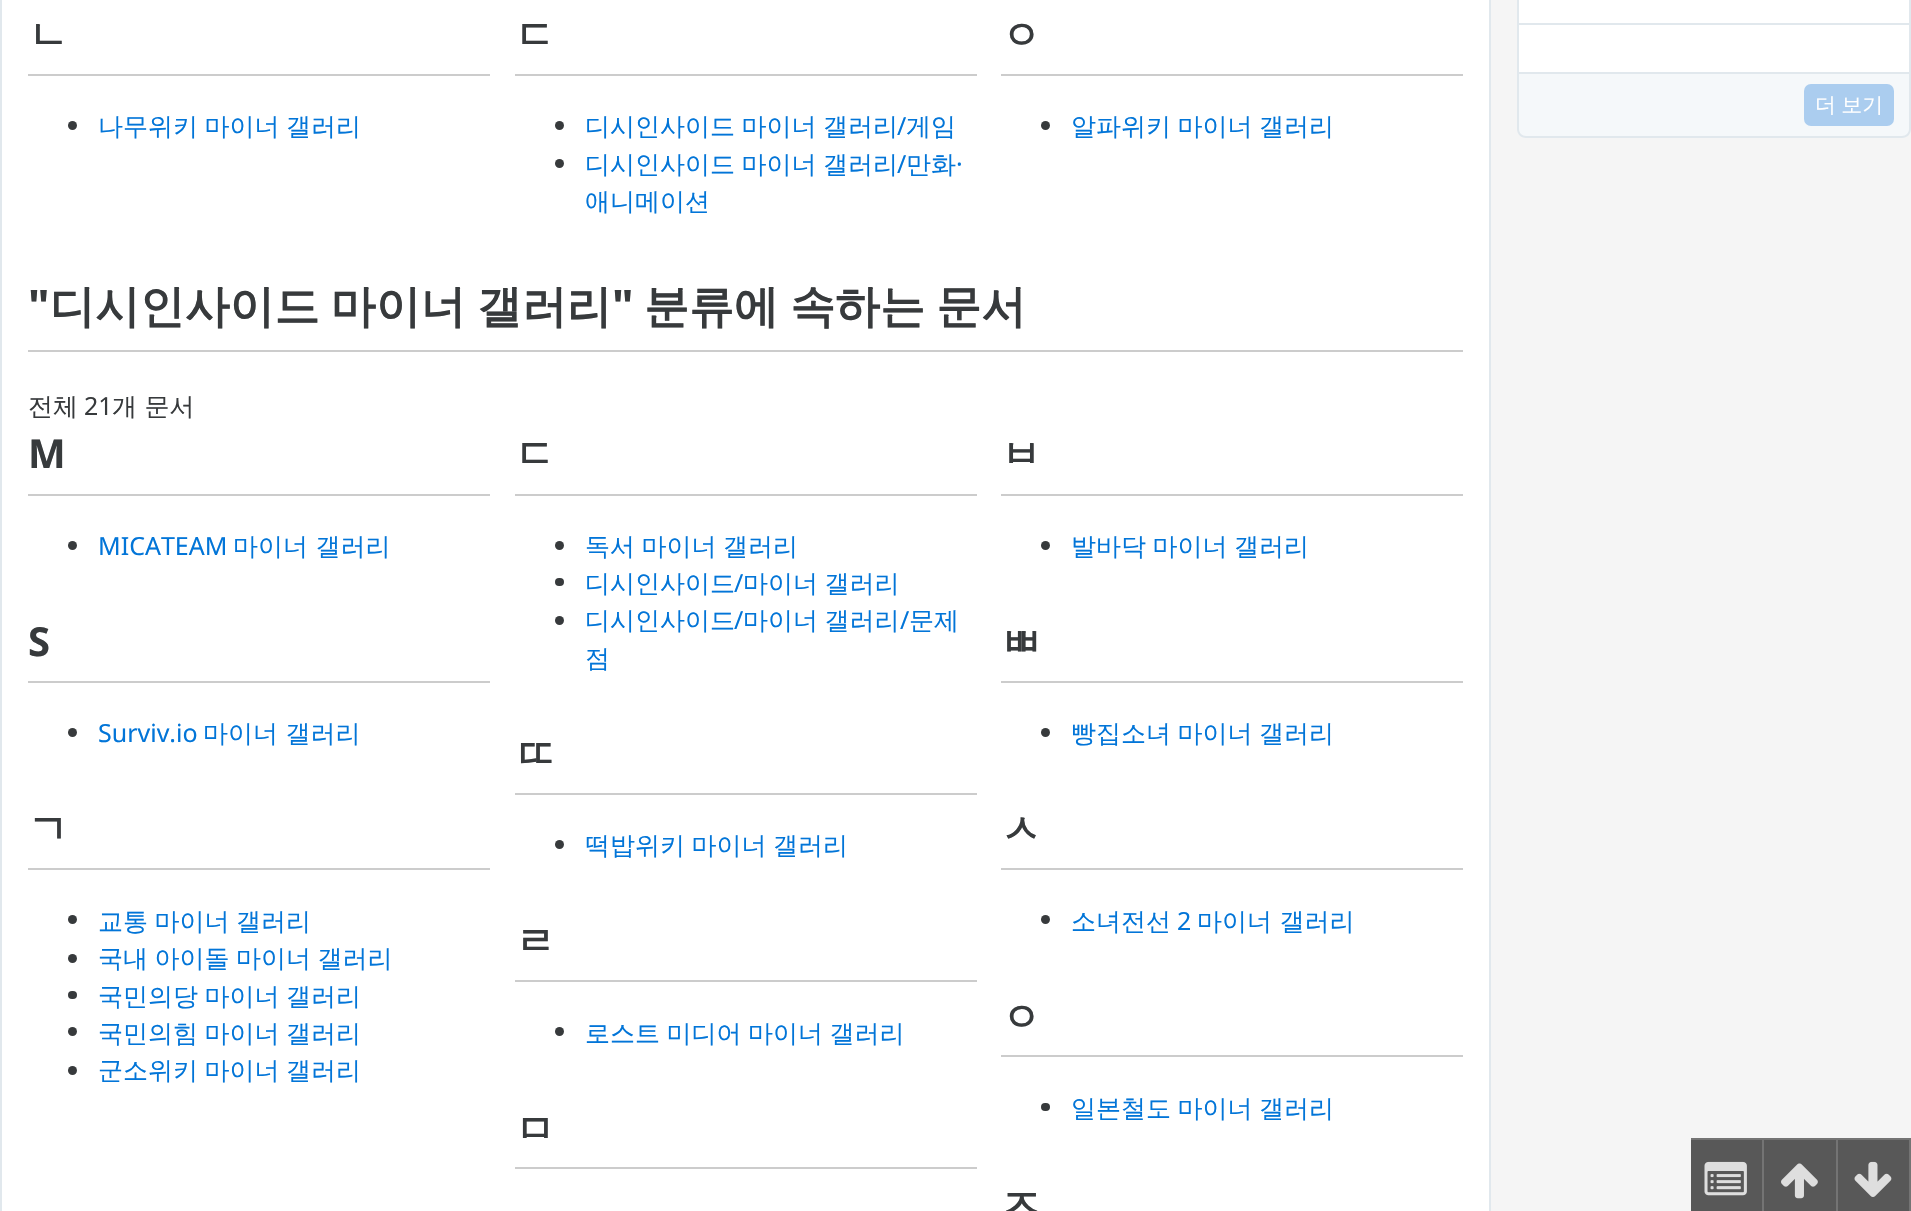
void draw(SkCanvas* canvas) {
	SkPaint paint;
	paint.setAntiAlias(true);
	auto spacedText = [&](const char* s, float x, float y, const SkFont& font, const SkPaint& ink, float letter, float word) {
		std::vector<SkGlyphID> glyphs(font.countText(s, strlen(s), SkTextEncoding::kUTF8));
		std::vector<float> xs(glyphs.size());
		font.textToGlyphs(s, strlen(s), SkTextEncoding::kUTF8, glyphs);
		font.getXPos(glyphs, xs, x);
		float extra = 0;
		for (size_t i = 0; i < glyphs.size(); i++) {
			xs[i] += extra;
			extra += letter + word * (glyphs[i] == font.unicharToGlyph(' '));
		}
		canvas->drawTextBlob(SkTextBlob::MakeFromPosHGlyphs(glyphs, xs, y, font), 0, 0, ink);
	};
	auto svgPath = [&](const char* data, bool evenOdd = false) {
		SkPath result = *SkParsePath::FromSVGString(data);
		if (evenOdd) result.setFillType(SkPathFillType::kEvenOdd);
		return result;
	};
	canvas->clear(0xfff5f5f5);
	paint.setColor(0xffffffff);
	canvas->drawRect(SkRect::MakeXYWH(2, 0, 1487, 1211), paint);
	paint.setColor(0xffe1e8ed);
	canvas->drawRect(SkRect::MakeXYWH(1489, 0, 2, 1211), paint);
	canvas->drawRect(SkRect::MakeXYWH(0, 0, 2, 1211), paint);
	paint.setColor(0xffcccccc);
	canvas->drawRect(SkRect::MakeXYWH(28, 74, 462, 2), paint);
	SkFont f1(fontMgr->matchFamilyStyle("WenQuanYi Zen Hei", SkFontStyle::Bold()), 40);
	f1.setSubpixel(true);
	paint.setColor(0xff373a3c);
	canvas->drawString("ㄴ", 28, 49, f1, paint);
	canvas->drawCircle(72.5, 125.5, 4.5, paint);
	SkFont f2(fontMgr->matchFamilyStyle("WenQuanYi Zen Hei", SkFontStyle(500, SkFontStyle::kNormal_Width, SkFontStyle::kUpright_Slant)), 25);
	f2.setSubpixel(true);
	paint.setColor(0xff0275d8);
	spacedText("나무위키 마이너 갤러리", 98, 135, f2, paint, 0, -1);
	paint.setColor(0xffcccccc);
	canvas->drawRect(SkRect::MakeXYWH(515, 74, 462, 2), paint);
	paint.setColor(0xff373a3c);
	canvas->drawString("ㄷ", 515, 49, f1, paint);
	canvas->drawCircle(559.5, 125.5, 4.5, paint);
	paint.setColor(0xff0275d8);
	spacedText("디시인사이드 마이너 갤러리", 585, 135, f2, paint, 0, -1);
	SkFont f3(fontMgr->matchFamilyStyle("Noto Sans", SkFontStyle::Normal()), 25);
	f3.setSubpixel(true);
	canvas->drawString("/", 897, 135, f3, paint);
	canvas->drawString("게임", 906, 135, f2, paint);
	paint.setColor(0xff373a3c);
	canvas->drawCircle(559.5, 163.5, 4.5, paint);
	paint.setColor(0xff0275d8);
	spacedText("디시인사이드 마이너 갤러리", 585, 173, f2, paint, 0, -1);
	canvas->drawString("/", 897, 173, f3, paint);
	canvas->drawString("만화", 906, 173, f2, paint);
	canvas->drawString("·", 956, 173, f3, paint);
	canvas->drawString("애니메이션", 585, 210, f2, paint);
	paint.setColor(0xffcccccc);
	canvas->drawRect(SkRect::MakeXYWH(1001, 74, 462, 2), paint);
	paint.setColor(0xff373a3c);
	canvas->drawString("ㅇ", 1001, 49, f1, paint);
	canvas->drawCircle(1045.5, 125.5, 4.5, paint);
	paint.setColor(0xff0275d8);
	spacedText("알파위키 마이너 갤러리", 1071, 135, f2, paint, 0, -1);
	paint.setColor(0xffcccccc);
	canvas->drawRect(SkRect::MakeXYWH(28, 350, 1435, 2), paint);
	SkFont f4(fontMgr->matchFamilyStyle("Noto Sans", SkFontStyle::Bold()), 44.9);
	f4.setSubpixel(true);
	paint.setColor(0xff373a3c);
	canvas->drawString("\"", 28, 322, f4, paint);
	SkFont f5(fontMgr->matchFamilyStyle("WenQuanYi Zen Hei", SkFontStyle::Bold()), 44.9);
	f5.setSubpixel(true);
	spacedText("디시인사이드 마이너 갤러리", 50, 322, f5, paint, 0, -2);
	canvas->drawString("\"", 612, 322, f4, paint);
	spacedText("분류에 속하는 문서", 644, 322, f5, paint, 0, -2);
	canvas->drawString("전체", 28, 415, f2, paint);
	canvas->drawString("21", 84, 415, f3, paint);
	canvas->drawString("개 문서", 112, 415, f2, paint);
	paint.setColor(0xffcccccc);
	canvas->drawRect(SkRect::MakeXYWH(28, 494, 462, 2), paint);
	SkFont f6(fontMgr->matchFamilyStyle("Noto Sans", SkFontStyle::Bold()), 40);
	f6.setSubpixel(true);
	paint.setColor(0xff373a3c);
	canvas->drawString("M", 28, 468, f6, paint);
	canvas->drawCircle(72.5, 545.5, 4.5, paint);
	paint.setColor(0xff0275d8);
	canvas->drawString("MICATEAM", 98, 555, f3, paint);
	canvas->drawString("마이너 갤러리", 233, 555, f2, paint);
	paint.setColor(0xffcccccc);
	canvas->drawRect(SkRect::MakeXYWH(515, 494, 462, 2), paint);
	paint.setColor(0xff373a3c);
	canvas->drawString("ㄷ", 515, 468, f1, paint);
	canvas->drawCircle(559.5, 545.5, 4.5, paint);
	paint.setColor(0xff0275d8);
	spacedText("독서 마이너 갤러리", 585, 555, f2, paint, 0, -1);
	paint.setColor(0xff373a3c);
	canvas->drawRoundRect(SkRect::MakeXYWH(555, 578, 9, 8), 4, 4, paint);
	paint.setColor(0xff0275d8);
	canvas->drawString("디시인사이드", 585, 592, f2, paint);
	canvas->drawString("/", 734, 592, f3, paint);
	spacedText("마이너 갤러리", 743, 592, f2, paint, 0, -1);
	paint.setColor(0xff373a3c);
	canvas->drawCircle(559.5, 620.5, 4.5, paint);
	paint.setColor(0xff0275d8);
	canvas->drawString("디시인사이드", 585, 629, f2, paint);
	canvas->drawString("/", 734, 629, f3, paint);
	spacedText("마이너 갤러리", 743, 629, f2, paint, 0, -1);
	canvas->drawString("/", 900, 629, f3, paint);
	canvas->drawString("문제", 909, 629, f2, paint);
	canvas->drawString("점", 585, 667, f2, paint);
	paint.setColor(0xffcccccc);
	canvas->drawRect(SkRect::MakeXYWH(1001, 494, 462, 2), paint);
	paint.setColor(0xff373a3c);
	canvas->drawString("ㅂ", 1001, 468, f1, paint);
	canvas->drawCircle(1045.5, 545.5, 4.5, paint);
	paint.setColor(0xff0275d8);
	spacedText("발바닥 마이너 갤러리", 1071, 555, f2, paint, 0, -1);
	paint.setColor(0xffcccccc);
	canvas->drawRect(SkRect::MakeXYWH(28, 681, 462, 2), paint);
	paint.setColor(0xff373a3c);
	canvas->drawString("S", 28, 656, f6, paint);
	canvas->drawCircle(72.5, 732.5, 4.5, paint);
	paint.setColor(0xff0275d8);
	canvas->drawString("Surviv.io", 98, 742, f3, paint);
	canvas->drawString("마이너 갤러리", 203, 742, f2, paint);
	paint.setColor(0xffcccccc);
	canvas->drawRect(SkRect::MakeXYWH(1001, 681, 462, 2), paint);
	paint.setColor(0xff373a3c);
	canvas->drawString("ㅃ", 1001, 656, f1, paint);
	canvas->drawCircle(1045.5, 732.5, 4.5, paint);
	paint.setColor(0xff0275d8);
	spacedText("빵집소녀 마이너 갤러리", 1071, 742, f2, paint, 0, -1);
	paint.setColor(0xffcccccc);
	canvas->drawRect(SkRect::MakeXYWH(515, 793, 462, 2), paint);
	paint.setColor(0xff373a3c);
	canvas->drawString("ㄸ", 515, 768, f1, paint);
	canvas->drawCircle(559.5, 844.5, 4.5, paint);
	paint.setColor(0xff0275d8);
	spacedText("떡밥위키 마이너 갤러리", 585, 854, f2, paint, 0, -1);
	paint.setColor(0xffcccccc);
	canvas->drawRect(SkRect::MakeXYWH(28, 868, 462, 2), paint);
	paint.setColor(0xff373a3c);
	canvas->drawString("ㄱ", 28, 843, f1, paint);
	canvas->drawCircle(72.5, 919.5, 4.5, paint);
	paint.setColor(0xff0275d8);
	spacedText("교통 마이너 갤러리", 98, 930, f2, paint, 0, -1);
	paint.setColor(0xff373a3c);
	canvas->drawCircle(72.5, 958.5, 4.5, paint);
	paint.setColor(0xff0275d8);
	spacedText("국내 아이돌 마이너 갤러리", 98, 967, f2, paint, 0, -1);
	paint.setColor(0xff373a3c);
	canvas->drawRoundRect(SkRect::MakeXYWH(68, 991, 9, 8), 4, 4, paint);
	paint.setColor(0xff0275d8);
	spacedText("국민의당 마이너 갤러리", 98, 1005, f2, paint, 0, -1);
	paint.setColor(0xff373a3c);
	canvas->drawCircle(72.5, 1031.5, 4.5, paint);
	paint.setColor(0xff0275d8);
	spacedText("국민의힘 마이너 갤러리", 98, 1042, f2, paint, 0, -1);
	paint.setColor(0xff373a3c);
	canvas->drawCircle(72.5, 1070.5, 4.5, paint);
	paint.setColor(0xff0275d8);
	spacedText("군소위키 마이너 갤러리", 98, 1079, f2, paint, 0, -1);
	paint.setColor(0xffcccccc);
	canvas->drawRect(SkRect::MakeXYWH(515, 980, 462, 2), paint);
	paint.setColor(0xff373a3c);
	canvas->drawString("ㄹ", 515, 955, f1, paint);
	canvas->drawCircle(559.5, 1031.5, 4.5, paint);
	paint.setColor(0xff0275d8);
	spacedText("로스트 미디어 마이너 갤러리", 585, 1042, f2, paint, 0, -1);
	paint.setColor(0xffcccccc);
	canvas->drawRect(SkRect::MakeXYWH(1001, 868, 462, 2), paint);
	paint.setColor(0xff373a3c);
	canvas->drawString("ㅅ", 1001, 843, f1, paint);
	canvas->drawCircle(1045.5, 919.5, 4.5, paint);
	paint.setColor(0xff0275d8);
	canvas->drawString("소녀전선", 1071, 930, f2, paint);
	canvas->drawString("2", 1177, 930, f3, paint);
	canvas->drawString("마이너 갤러리", 1197, 930, f2, paint);
	paint.setColor(0xffcccccc);
	canvas->drawRect(SkRect::MakeXYWH(1001, 1055, 462, 2), paint);
	paint.setColor(0xff373a3c);
	canvas->drawString("ㅇ", 1001, 1031, f1, paint);
	canvas->drawRoundRect(SkRect::MakeXYWH(1041, 1103, 9, 8), 4, 4, paint);
	paint.setColor(0xff0275d8);
	spacedText("일본철도 마이너 갤러리", 1071, 1117, f2, paint, 0, -1);
	paint.setColor(0xffcccccc);
	canvas->drawRect(SkRect::MakeXYWH(515, 1167, 462, 2), paint);
	paint.setColor(0xff373a3c);
	canvas->drawString("ㅁ", 515, 1143, f1, paint);
	canvas->drawString("ㅈ", 1001, 1218, f1, paint);
	paint.setColor(0xffffffff);
	canvas->drawRect(SkRect::MakeXYWH(1519, 0, 390, 72), paint);
	paint.setColor(0xffe1e8ed);
	canvas->drawRect(SkRect::MakeXYWH(1909, 0, 2, 74), paint);
	canvas->drawRect(SkRect::MakeXYWH(1517, 72, 394, 2), paint);
	canvas->drawRect(SkRect::MakeXYWH(1517, 0, 2, 74), paint);
	canvas->drawRect(SkRect::MakeXYWH(1519, 23, 390, 2), paint);
	paint.setColor(0xfff5f8fa);
	canvas->drawPath(svgPath("M1517 74H1911V129C1911 134 1907 138 1902 138H1526C1521 138 1517 134 1517 129Z"), paint);
	paint.setColor(0xffe1e8ed);
	canvas->drawPath(svgPath("M1517 74H1911V129C1911 134 1907 138 1902 138H1526C1521 138 1517 134 1517 129ZM1519 74H1909V129C1909 133 1906 136 1902 136H1526C1522 136 1519 133 1519 129Z", true), paint);
	paint.setColor(0xffabcdef);
	canvas->drawRoundRect(SkRect::MakeXYWH(1804, 84, 90, 42), 7, 7, paint);
	SkFont f7(fontMgr->matchFamilyStyle("WenQuanYi Zen Hei", SkFontStyle(500, SkFontStyle::kNormal_Width, SkFontStyle::kUpright_Slant)), 21);
	f7.setSubpixel(true);
	paint.setColor(0xffffffff);
	spacedText("더 보기", 1815, 112, f7, paint, 0, -1);
	paint.setColor(0xff585858);
	canvas->drawRect(SkRect::MakeXYWH(1691, 1140, 71, 71), paint);
	paint.setColor(0xff747474);
	canvas->drawRect(SkRect::MakeXYWH(1691, 1138, 220, 2), paint);
	canvas->drawRect(SkRect::MakeXYWH(1762, 1138, 2, 73), paint);
	canvas->drawImageRect(SkImages::DeferredFromEncodedData(SkData::MakeFromFileName("img1.png")), SkRect::MakeXYWH(1704, 1161, 43, 35), SkSamplingOptions());
	paint.setColor(0xff585858);
	canvas->drawRect(SkRect::MakeXYWH(1764, 1140, 72, 71), paint);
	paint.setColor(0xff747474);
	canvas->drawRect(SkRect::MakeXYWH(1836, 1138, 2, 73), paint);
	canvas->drawImageRect(SkImages::DeferredFromEncodedData(SkData::MakeFromFileName("img2.png")), SkRect::MakeXYWH(1781, 1163, 37, 36), SkSamplingOptions());
	paint.setColor(0xff585858);
	canvas->drawRect(SkRect::MakeXYWH(1838, 1140, 71, 71), paint);
	paint.setColor(0xff747474);
	canvas->drawRect(SkRect::MakeXYWH(1909, 1138, 2, 73), paint);
	canvas->drawImageRect(SkImages::DeferredFromEncodedData(SkData::MakeFromFileName("img3.png")), SkRect::MakeXYWH(1854, 1161, 38, 36), SkSamplingOptions());
}
